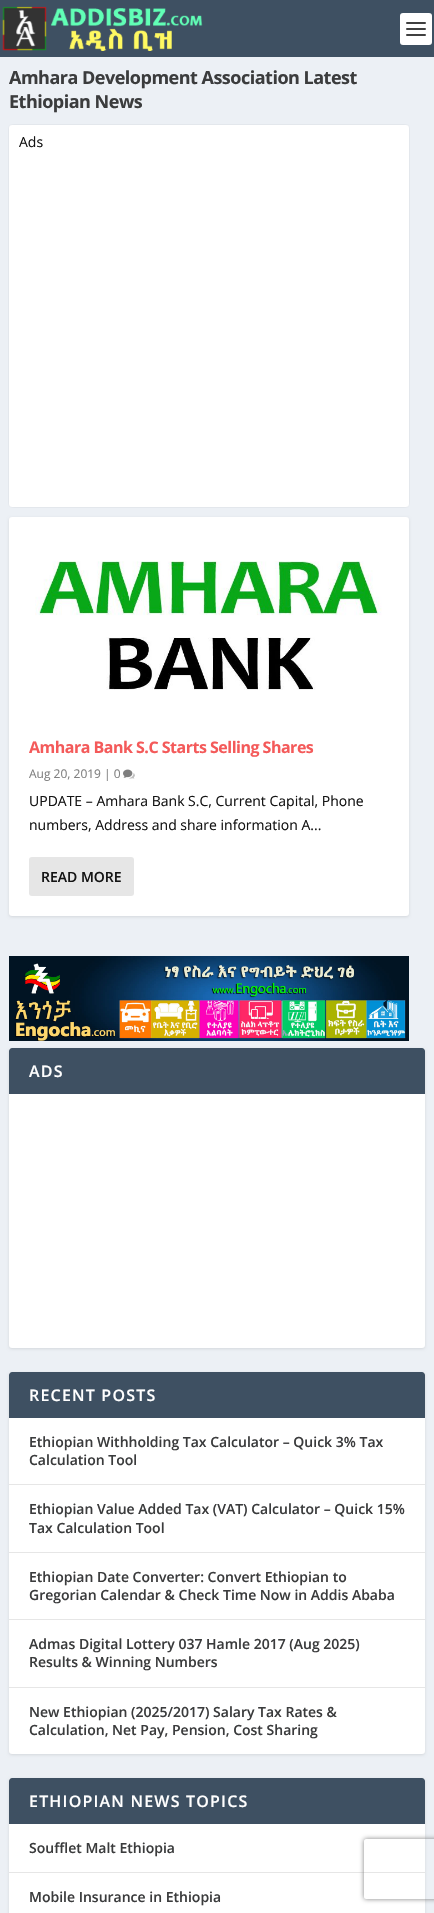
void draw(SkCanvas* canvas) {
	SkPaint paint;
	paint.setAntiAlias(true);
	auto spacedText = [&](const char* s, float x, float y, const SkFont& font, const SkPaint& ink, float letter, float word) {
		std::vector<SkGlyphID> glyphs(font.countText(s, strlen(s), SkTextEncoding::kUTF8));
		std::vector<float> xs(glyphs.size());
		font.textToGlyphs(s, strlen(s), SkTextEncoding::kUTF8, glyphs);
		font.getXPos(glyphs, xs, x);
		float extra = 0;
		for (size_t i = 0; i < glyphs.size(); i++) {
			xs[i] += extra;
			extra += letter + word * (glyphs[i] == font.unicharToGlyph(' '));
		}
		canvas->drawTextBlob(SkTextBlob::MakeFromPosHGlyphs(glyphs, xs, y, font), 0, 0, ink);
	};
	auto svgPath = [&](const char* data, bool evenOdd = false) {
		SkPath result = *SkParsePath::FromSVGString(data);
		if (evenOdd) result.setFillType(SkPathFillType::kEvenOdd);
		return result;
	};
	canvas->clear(0xffecf0f5);
	paint.setColor(0xff3e5062);
	canvas->drawRect(SkRect::MakeXYWH(0, 0, 434, 57), paint);
	canvas->drawImageRect(SkImages::DeferredFromEncodedData(SkData::MakeFromFileName("img1.png")), SkRect::MakeXYWH(2, 6, 201, 45), SkSamplingOptions());
	paint.setColor(0xffffffff);
	canvas->drawRoundRect(SkRect::MakeXYWH(400, 13, 32, 32), 3, 3, paint);
	paint.setColor(0xff404040);
	canvas->drawRoundRect(SkRect::MakeXYWH(406, 22, 20, 2), 1, 1, paint);
	canvas->drawRoundRect(SkRect::MakeXYWH(406, 28, 20, 2), 1, 1, paint);
	canvas->drawRoundRect(SkRect::MakeXYWH(406, 34, 20, 2), 1, 1, paint);
	SkFont f1(fontMgr->matchFamilyStyle("Open Sans", SkFontStyle::Bold()), 18);
	f1.setSubpixel(true);
	paint.setColor(0xff3b3c3d);
	spacedText("Amhara Development Association Latest", 9, 84, f1, paint, -0.5, 0);
	spacedText("Ethiopian News", 9, 108, f1, paint, -0.5, 0);
	paint.setColor(0xff000000);
	paint.setMaskFilter(SkMaskFilter::MakeBlur(kNormal_SkBlurStyle, 1.5));
	canvas->drawRoundRect(SkRect::MakeXYWH(11, 127, 396, 378), 1, 1, paint);
	paint.setMaskFilter(nullptr);
	paint.setColor(0xffffffff);
	canvas->drawRoundRect(SkRect::MakeXYWH(9, 125, 400, 382), 3, 3, paint);
	SkFont f2(fontMgr->matchFamilyStyle("Open Sans", SkFontStyle::Normal()), 14);
	f2.setSubpixel(true);
	paint.setColor(0xff141414);
	canvas->drawString("Ads", 19, 147, f2, paint);
	paint.setColor(0x1a000000);
	paint.setMaskFilter(SkMaskFilter::MakeBlur(kNormal_SkBlurStyle, 1.5));
	canvas->drawRoundRect(SkRect::MakeXYWH(9, 518, 400, 399), 3, 3, paint);
	paint.setMaskFilter(nullptr);
	paint.setColor(0xffffffff);
	canvas->drawRoundRect(SkRect::MakeXYWH(9, 517, 400, 399), 3, 3, paint);
	canvas->drawImageRect(SkImages::DeferredFromEncodedData(SkData::MakeFromFileName("img2.png")), SkRect::MakeXYWH(35, 561, 347, 129), SkSamplingOptions());
	SkFont f3(fontMgr->matchFamilyStyle("Open Sans", SkFontStyle::Bold()), 16);
	f3.setSubpixel(true);
	paint.setColor(0xfff45a5a);
	spacedText("Amhara Bank S.C Starts Selling Shares", 29, 753, f3, paint, -0.5, 0);
	SkFont f4(fontMgr->matchFamilyStyle("Open Sans", SkFontStyle::Normal()), 12);
	f4.setSubpixel(true);
	paint.setColor(0xff808080);
	canvas->drawString("Aug 20, 2019 | 0", 29, 778, f4, paint);
	canvas->drawImageRect(SkImages::DeferredFromEncodedData(SkData::MakeFromFileName("img3.png")), SkRect::MakeXYWH(123, 769, 12, 10), SkSamplingOptions());
	paint.setColor(0xff141414);
	canvas->drawString("UPDATE – Amhara Bank S.C, Current Capital, Phone", 29, 806, f2, paint);
	canvas->drawString("numbers, Address and share information A...", 29, 830, f2, paint);
	paint.setColor(0xffe6e6e6);
	canvas->drawRoundRect(SkRect::MakeXYWH(29, 857, 105, 39), 3, 3, paint);
	SkFont f5(fontMgr->matchFamilyStyle("Open Sans", SkFontStyle(600, SkFontStyle::kNormal_Width, SkFontStyle::kUpright_Slant)), 14);
	f5.setSubpixel(true);
	paint.setColor(0xff141414);
	canvas->drawString("READ MORE", 41, 882, f5, paint);
	canvas->drawImageRect(SkImages::DeferredFromEncodedData(SkData::MakeFromFileName("img4.png")), SkRect::MakeXYWH(9, 956, 400, 85), SkSamplingOptions());
	paint.setColor(0x1a000000);
	paint.setMaskFilter(SkMaskFilter::MakeBlur(kNormal_SkBlurStyle, 1.5));
	canvas->drawRoundRect(SkRect::MakeXYWH(9, 1049, 416, 300), 3, 3, paint);
	paint.setMaskFilter(nullptr);
	paint.setColor(0xffffffff);
	canvas->drawRoundRect(SkRect::MakeXYWH(9, 1048, 416, 300), 3, 3, paint);
	paint.setColor(0xff3e5062);
	canvas->drawPath(svgPath("M12 1048H422C423.5 1048 425 1049.5 425 1051V1094H9V1051C9 1049.5 10.5 1048 12 1048Z"), paint);
	SkFont f6(fontMgr->matchFamilyStyle("Open Sans", SkFontStyle(600, SkFontStyle::kNormal_Width, SkFontStyle::kUpright_Slant)), 16);
	f6.setSubpixel(true);
	paint.setColor(0xffffffff);
	spacedText("ADS", 29, 1077, f6, paint, 1.2, 0);
	paint.setColor(0x1a000000);
	paint.setMaskFilter(SkMaskFilter::MakeBlur(kNormal_SkBlurStyle, 1.5));
	canvas->drawRoundRect(SkRect::MakeXYWH(9, 1373, 416, 382), 3, 3, paint);
	paint.setMaskFilter(nullptr);
	paint.setColor(0xffffffff);
	canvas->drawRoundRect(SkRect::MakeXYWH(9, 1372, 416, 382), 3, 3, paint);
	paint.setColor(0xff3e5062);
	canvas->drawPath(svgPath("M12 1372H422C423.5 1372 425 1373.5 425 1375V1418H9V1375C9 1373.5 10.5 1372 12 1372Z"), paint);
	paint.setColor(0xffffffff);
	spacedText("RECENT POSTS", 29, 1401, f6, paint, 1.2, 0);
	paint.setColor(0xffe6e6e6);
	canvas->drawRect(SkRect::MakeXYWH(9, 1484, 416, 1), paint);
	paint.setColor(0xff3b3c3d);
	canvas->drawString("Ethiopian Withholding Tax Calculator – Quick 3% Tax", 29, 1447, f5, paint);
	canvas->drawString("Calculation Tool", 29, 1465, f5, paint);
	paint.setColor(0xffe6e6e6);
	canvas->drawRect(SkRect::MakeXYWH(9, 1552, 416, 1), paint);
	paint.setColor(0xff3b3c3d);
	canvas->drawString("Ethiopian Value Added Tax (VAT) Calculator – Quick 15%", 29, 1514, f5, paint);
	canvas->drawString("Tax Calculation Tool", 29, 1533, f5, paint);
	paint.setColor(0xffe6e6e6);
	canvas->drawRect(SkRect::MakeXYWH(9, 1619, 416, 1), paint);
	paint.setColor(0xff3b3c3d);
	canvas->drawString("Ethiopian Date Converter: Convert Ethiopian to", 29, 1582, f5, paint);
	canvas->drawString("Gregorian Calendar & Check Time Now in Addis Ababa", 29, 1600, f5, paint);
	paint.setColor(0xffe6e6e6);
	canvas->drawRect(SkRect::MakeXYWH(9, 1687, 416, 1), paint);
	paint.setColor(0xff3b3c3d);
	canvas->drawString("Admas Digital Lottery 037 Hamle 2017 (Aug 2025)", 29, 1649, f5, paint);
	canvas->drawString("Results & Winning Numbers", 29, 1667, f5, paint);
	canvas->drawString("New Ethiopian (2025/2017) Salary Tax Rates &", 29, 1717, f5, paint);
	canvas->drawString("Calculation, Net Pay, Pension, Cost Sharing", 29, 1735, f5, paint);
	paint.setColor(0x1a000000);
	paint.setMaskFilter(SkMaskFilter::MakeBlur(kNormal_SkBlurStyle, 1.5));
	canvas->drawRoundRect(SkRect::MakeXYWH(9, 1779, 416, 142), 3, 3, paint);
	paint.setMaskFilter(nullptr);
	paint.setColor(0xffffffff);
	canvas->drawRoundRect(SkRect::MakeXYWH(9, 1778, 416, 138), 3, 3, paint);
	paint.setColor(0xff3e5062);
	canvas->drawPath(svgPath("M12 1778H422C423.5 1778 425 1779.5 425 1781V1824H9V1781C9 1779.5 10.5 1778 12 1778Z"), paint);
	paint.setColor(0xffffffff);
	spacedText("ETHIOPIAN NEWS TOPICS", 29, 1807, f6, paint, 1.2, 0);
	paint.setColor(0xffe6e6e6);
	canvas->drawRect(SkRect::MakeXYWH(9, 1872, 416, 1), paint);
	paint.setColor(0xff3b3c3d);
	canvas->drawString("Soufflet Malt Ethiopia", 29, 1853, f5, paint);
	canvas->drawString("Mobile Insurance in Ethiopia", 29, 1902, f5, paint);
	canvas->save();
	canvas->clipPath(svgPath("M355 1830H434V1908H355ZM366 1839H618C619 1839 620 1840 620 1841V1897C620 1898 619 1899 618 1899H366C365 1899 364 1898 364 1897V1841C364 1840 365 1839 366 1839Z", true), true);
	paint.setColor(0xff808080);
	paint.setMaskFilter(SkMaskFilter::MakeBlur(kNormal_SkBlurStyle, 2.5));
	canvas->drawRoundRect(SkRect::MakeXYWH(364, 1839, 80, 60), 2, 2, paint);
	paint.setMaskFilter(nullptr);
	canvas->restore();
}
